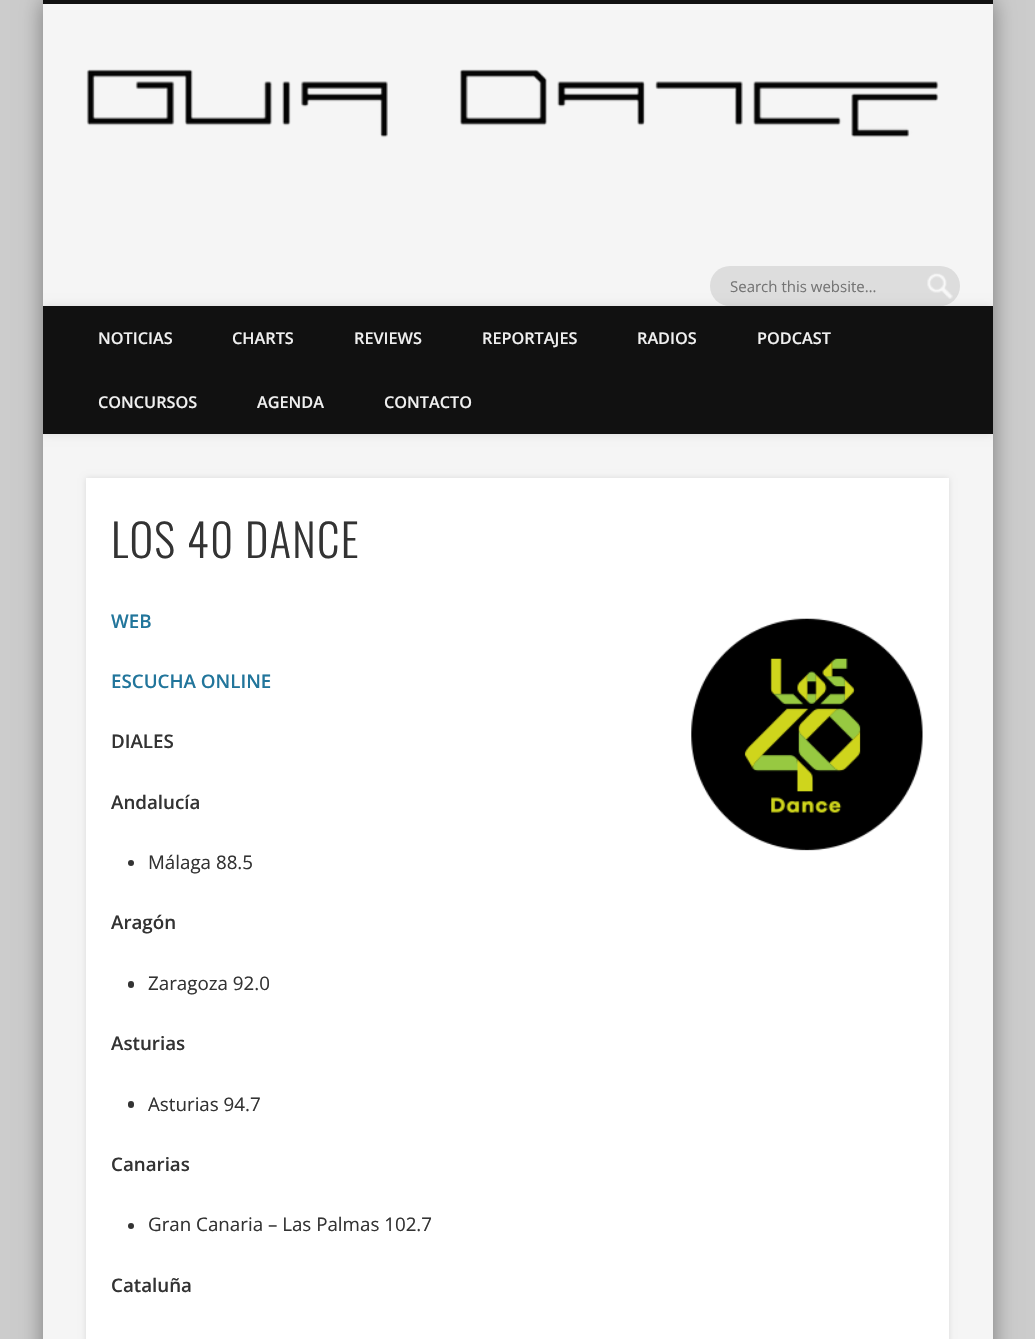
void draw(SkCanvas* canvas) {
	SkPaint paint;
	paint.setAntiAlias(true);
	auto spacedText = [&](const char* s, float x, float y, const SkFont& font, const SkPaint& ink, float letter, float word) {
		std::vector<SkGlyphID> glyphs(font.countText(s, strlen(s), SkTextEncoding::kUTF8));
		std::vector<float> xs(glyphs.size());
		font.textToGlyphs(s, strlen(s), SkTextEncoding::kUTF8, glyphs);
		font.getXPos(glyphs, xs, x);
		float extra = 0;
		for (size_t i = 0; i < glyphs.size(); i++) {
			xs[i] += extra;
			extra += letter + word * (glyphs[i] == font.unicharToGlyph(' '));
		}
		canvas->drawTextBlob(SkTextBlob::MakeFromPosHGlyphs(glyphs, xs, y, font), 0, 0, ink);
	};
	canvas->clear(0xffcccccc);
	paint.setColor(0x66000000);
	paint.setMaskFilter(SkMaskFilter::MakeBlur(kNormal_SkBlurStyle, 11));
	canvas->drawRect(SkRect::MakeXYWH(43, 0, 950, 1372), paint);
	paint.setMaskFilter(nullptr);
	paint.setColor(0xfff5f5f5);
	canvas->drawRect(SkRect::MakeXYWH(43, 4, 950, 1335), paint);
	paint.setColor(0xff111111);
	canvas->drawRect(SkRect::MakeXYWH(43, 0, 950, 4), paint);
	canvas->drawImageRect(SkImages::DeferredFromEncodedData(SkData::MakeFromFileName("img1.png")), SkRect::MakeXYWH(86, 69, 853, 69), SkSamplingOptions());
	paint.setColor(0xffdddddd);
	canvas->drawRoundRect(SkRect::MakeXYWH(710, 266, 250, 40), 20, 20, paint);
	canvas->drawImageRect(SkImages::DeferredFromEncodedData(SkData::MakeFromFileName("img2.png")), SkRect::MakeXYWH(927, 273, 26, 26), SkSamplingOptions());
	SkFont f1(fontMgr->matchFamilyStyle("Open Sans", SkFontStyle::Normal()), 15);
	f1.setSubpixel(true);
	paint.setColor(0xff757575);
	canvas->drawString("Search this website…", 730, 292, f1, paint);
	canvas->save();
	canvas->clipRect(SkRect::MakeXYWH(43, 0, 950, 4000));
	paint.setColor(0x1a000000);
	paint.setMaskFilter(SkMaskFilter::MakeBlur(kNormal_SkBlurStyle, 4.5));
	canvas->drawRect(SkRect::MakeXYWH(43, 306, 950, 128), paint);
	paint.setMaskFilter(nullptr);
	canvas->restore();
	paint.setColor(0xff111111);
	canvas->drawRect(SkRect::MakeXYWH(43, 306, 950, 128), paint);
	SkFont f2(fontMgr->matchFamilyStyle("Open Sans", SkFontStyle(600, SkFontStyle::kNormal_Width, SkFontStyle::kUpright_Slant)), 16.25);
	f2.setSubpixel(true);
	paint.setColor(0xfff0f0f0);
	canvas->drawString("NOTICIAS", 98, 344, f2, paint);
	canvas->drawString("CHARTS", 232, 344, f2, paint);
	canvas->drawString("REVIEWS", 354, 344, f2, paint);
	canvas->drawString("REPORTAJES", 482, 344, f2, paint);
	canvas->drawString("RADIOS", 637, 344, f2, paint);
	canvas->drawString("PODCAST", 757, 344, f2, paint);
	canvas->drawString("CONCURSOS", 98, 408, f2, paint);
	canvas->drawString("AGENDA", 257, 408, f2, paint);
	canvas->drawString("CONTACTO", 384, 408, f2, paint);
	paint.setColor(0x1a000000);
	paint.setMaskFilter(SkMaskFilter::MakeBlur(kNormal_SkBlurStyle, 3));
	canvas->drawRect(SkRect::MakeXYWH(86, 478, 863, 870), paint);
	paint.setMaskFilter(nullptr);
	paint.setColor(0xffffffff);
	canvas->drawRect(SkRect::MakeXYWH(86, 478, 863, 861), paint);
	SkFont f3(fontMgr->matchFamilyStyle("Oswald", SkFontStyle(300, SkFontStyle::kNormal_Width, SkFontStyle::kUpright_Slant)), 45);
	f3.setSubpixel(true);
	paint.setColor(0xff333333);
	spacedText("LOS 40 DANCE", 111, 558, f3, paint, 1.25, 0);
	SkFont f4(fontMgr->matchFamilyStyle("Open Sans", SkFontStyle(600, SkFontStyle::kNormal_Width, SkFontStyle::kUpright_Slant)), 18.75);
	f4.setSubpixel(true);
	paint.setColor(0xff21759b);
	canvas->drawString("WEB", 111, 628, f4, paint);
	canvas->drawImageRect(SkImages::DeferredFromEncodedData(SkData::MakeFromFileName("img3.png")), SkRect::MakeXYWH(691, 618, 232, 233), SkSamplingOptions());
	canvas->drawString("ESCUCHA ONLINE", 111, 688, f4, paint);
	paint.setColor(0xff333333);
	canvas->drawString("DIALES", 111, 748, f4, paint);
	canvas->drawString("Andalucía", 111, 809, f4, paint);
	canvas->drawCircle(131, 863, 3, paint);
	SkFont f5(fontMgr->matchFamilyStyle("Open Sans", SkFontStyle::Normal()), 18.75);
	f5.setSubpixel(true);
	canvas->drawString("Málaga 88.5", 148, 869, f5, paint);
	canvas->drawString("Aragón", 111, 929, f4, paint);
	canvas->drawRoundRect(SkRect::MakeXYWH(128, 981, 6, 7), 3, 3, paint);
	canvas->drawString("Zaragoza 92.0", 148, 990, f5, paint);
	canvas->drawString("Asturias", 111, 1050, f4, paint);
	canvas->drawRoundRect(SkRect::MakeXYWH(128, 1101, 6, 7), 3, 3, paint);
	canvas->drawString("Asturias 94.7", 148, 1111, f5, paint);
	canvas->drawString("Canarias", 111, 1171, f4, paint);
	canvas->drawCircle(131, 1226, 3, paint);
	canvas->drawString("Gran Canaria – Las Palmas 102.7", 148, 1231, f5, paint);
	canvas->drawString("Cataluña", 111, 1292, f4, paint);
}
